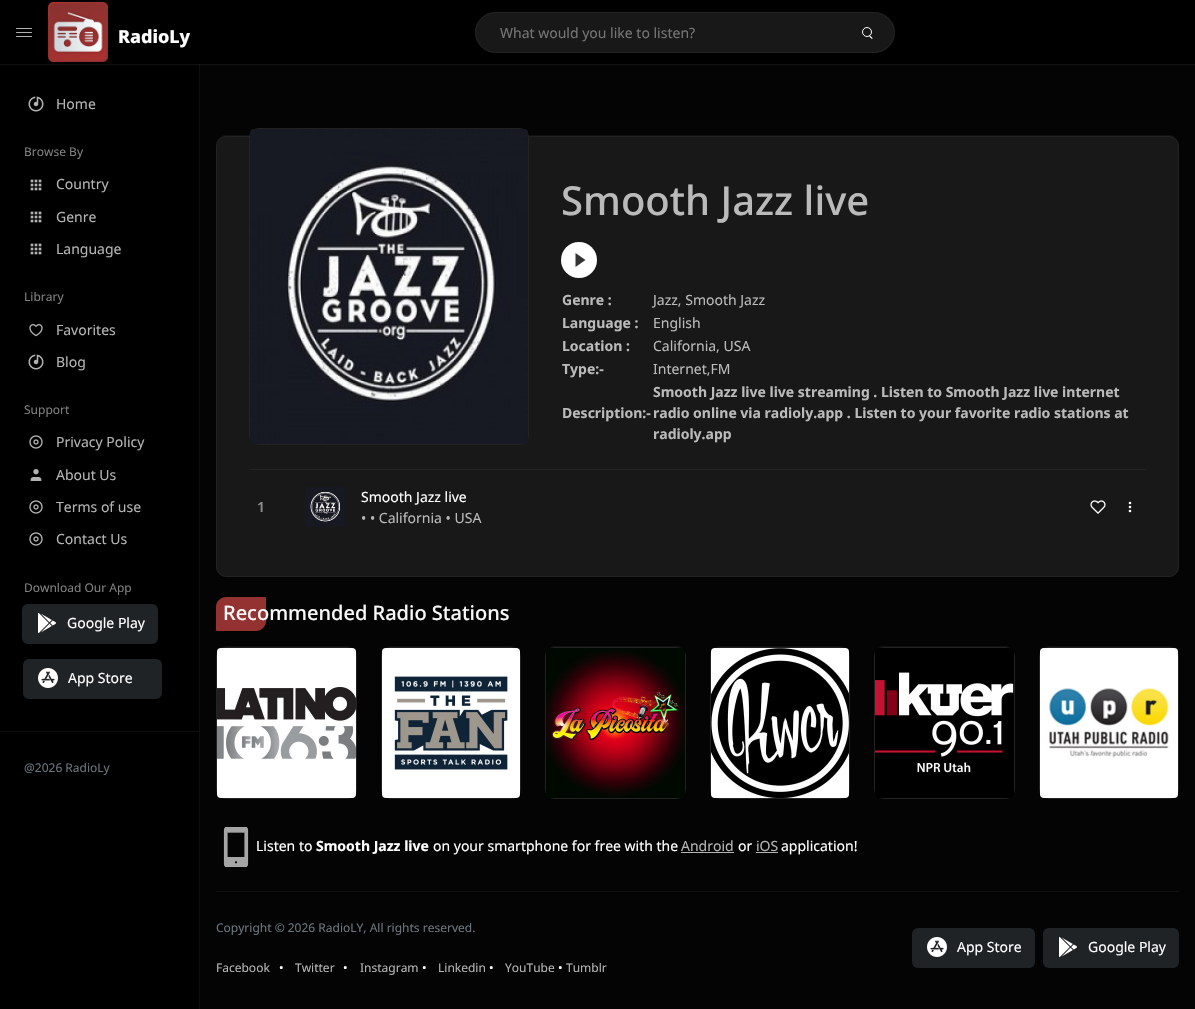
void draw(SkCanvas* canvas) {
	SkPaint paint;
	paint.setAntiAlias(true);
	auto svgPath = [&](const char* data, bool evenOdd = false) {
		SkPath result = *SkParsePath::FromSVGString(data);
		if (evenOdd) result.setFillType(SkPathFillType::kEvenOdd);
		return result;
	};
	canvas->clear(0xff040404);
	paint.setColor(0xff000000);
	canvas->drawRect(SkRect::MakeXYWH(0, 64, 199, 945), paint);
	paint.setColor(0xff0d0e0f);
	canvas->drawRect(SkRect::MakeXYWH(199, 64, 1, 945), paint);
	paint.setColor(0x1a828c96);
	paint.setMaskFilter(SkMaskFilter::MakeBlur(kNormal_SkBlurStyle, 0.5));
	canvas->drawRect(SkRect::MakeXYWH(0, 1, 1195, 64), paint);
	paint.setMaskFilter(nullptr);
	paint.setColor(0xff000000);
	canvas->drawRect(SkRect::MakeXYWH(0, 0, 1195, 64), paint);
	paint.setColor(0xffb3b3b3);
	canvas->drawRoundRect(SkRect::MakeXYWH(16, 28, 16, 1), 0.5, 0.5, paint);
	canvas->drawRoundRect(SkRect::MakeXYWH(16, 32, 16, 1), 0.5, 0.5, paint);
	canvas->drawRoundRect(SkRect::MakeXYWH(16, 36, 16, 1), 0.5, 0.5, paint);
	canvas->drawImageRect(SkImages::DeferredFromEncodedData(SkData::MakeFromFileName("img1.png")), SkRect::MakeXYWH(48, 2, 60, 60), SkSamplingOptions());
	SkFont f1(fontMgr->matchFamilyStyle("Noto Sans", SkFontStyle(800, SkFontStyle::kNormal_Width, SkFontStyle::kUpright_Slant)), 18);
	f1.setSubpixel(true);
	paint.setColor(0xffffffff);
	canvas->drawString("RadioLy", 118, 43, f1, paint);
	paint.setColor(0xff191818);
	canvas->drawRoundRect(SkRect::MakeXYWH(475.5, 12.5, 419, 40), 20, 20, paint);
	paint.setStroke(true);
	paint.setStrokeWidth(1);
	paint.setColor(0xff232323);
	canvas->drawRoundRect(SkRect::MakeXYWH(475.5, 12.5, 419, 40), 20, 20, paint);
	SkFont f2(fontMgr->matchFamilyStyle("Noto Sans", SkFontStyle::Normal()), 14);
	f2.setSubpixel(true);
	paint.setStroke(false);
	paint.setColor(0xff757575);
	canvas->drawString("What would you like to listen?", 500, 38, f2, paint);
	paint.setStroke(true);
	paint.setColor(0xffffffff);
	canvas->drawCircle(867, 32, 4.5, paint);
	paint.setStroke(false);
	canvas->drawPath(svgPath("M870 35.5L872.5 38V38.5C872 40 868.5 36 869 35Z"), paint);
	canvas->drawImageRect(SkImages::DeferredFromEncodedData(SkData::MakeFromFileName("img2.png")), SkRect::MakeXYWH(28, 96, 16, 16), SkSamplingOptions());
	paint.setColor(0xffb4b4b4);
	canvas->drawString("Home", 56, 109, f2, paint);
	SkFont f3(fontMgr->matchFamilyStyle("Noto Sans", SkFontStyle::Normal()), 12);
	f3.setSubpixel(true);
	paint.setColor(0xff808080);
	canvas->drawString("Browse By", 24, 156, f3, paint);
	canvas->drawImageRect(SkImages::DeferredFromEncodedData(SkData::MakeFromFileName("img3.png")), SkRect::MakeXYWH(30, 179, 12, 12), SkSamplingOptions());
	paint.setColor(0xffb4b4b4);
	canvas->drawString("Country", 56, 189, f2, paint);
	canvas->drawImageRect(SkImages::DeferredFromEncodedData(SkData::MakeFromFileName("img3.png")), SkRect::MakeXYWH(30, 211, 12, 12), SkSamplingOptions());
	canvas->drawString("Genre", 56, 222, f2, paint);
	canvas->drawImageRect(SkImages::DeferredFromEncodedData(SkData::MakeFromFileName("img3.png")), SkRect::MakeXYWH(30, 243, 12, 12), SkSamplingOptions());
	canvas->drawString("Language", 56, 254, f2, paint);
	paint.setColor(0xff808080);
	canvas->drawString("Library", 24, 301, f3, paint);
	canvas->drawImageRect(SkImages::DeferredFromEncodedData(SkData::MakeFromFileName("img4.png")), SkRect::MakeXYWH(29, 324, 14, 13), SkSamplingOptions());
	paint.setColor(0xffb4b4b4);
	canvas->drawString("Favorites", 56, 335, f2, paint);
	canvas->drawImageRect(SkImages::DeferredFromEncodedData(SkData::MakeFromFileName("img2.png")), SkRect::MakeXYWH(28, 354, 16, 16), SkSamplingOptions());
	canvas->drawString("Blog", 56, 367, f2, paint);
	paint.setColor(0xff808080);
	canvas->drawString("Support", 24, 414, f3, paint);
	canvas->drawImageRect(SkImages::DeferredFromEncodedData(SkData::MakeFromFileName("img5.png")), SkRect::MakeXYWH(29, 435, 14, 14), SkSamplingOptions());
	paint.setColor(0xffb4b4b4);
	canvas->drawString("Privacy Policy", 56, 447, f2, paint);
	canvas->drawImageRect(SkImages::DeferredFromEncodedData(SkData::MakeFromFileName("img6.png")), SkRect::MakeXYWH(30, 469, 12, 12), SkSamplingOptions());
	canvas->drawString("About Us", 56, 480, f2, paint);
	canvas->drawImageRect(SkImages::DeferredFromEncodedData(SkData::MakeFromFileName("img5.png")), SkRect::MakeXYWH(29, 500, 14, 14), SkSamplingOptions());
	canvas->drawString("Terms of use", 56, 512, f2, paint);
	canvas->drawImageRect(SkImages::DeferredFromEncodedData(SkData::MakeFromFileName("img5.png")), SkRect::MakeXYWH(29, 532, 14, 14), SkSamplingOptions());
	canvas->drawString("Contact Us", 56, 544, f2, paint);
	paint.setColor(0xff808080);
	canvas->drawString("Download Our App", 24, 592, f3, paint);
	paint.setColor(0xff202326);
	canvas->drawRoundRect(SkRect::MakeXYWH(22, 604, 136, 40), 6, 6, paint);
	canvas->drawImageRect(SkImages::DeferredFromEncodedData(SkData::MakeFromFileName("img7.png")), SkRect::MakeXYWH(38, 612, 18, 22), SkSamplingOptions());
	paint.setColor(0xffffffff);
	canvas->drawString("Google Play", 67, 628, f2, paint);
	paint.setColor(0xff202326);
	canvas->drawRoundRect(SkRect::MakeXYWH(23, 659, 139, 40), 6, 6, paint);
	canvas->drawImageRect(SkImages::DeferredFromEncodedData(SkData::MakeFromFileName("img8.png")), SkRect::MakeXYWH(38, 668, 20, 20), SkSamplingOptions());
	paint.setColor(0xffffffff);
	canvas->drawString("App Store", 68, 683, f2, paint);
	paint.setColor(0xff0d0e0f);
	canvas->drawRect(SkRect::MakeXYWH(0, 731, 199, 1), paint);
	paint.setColor(0xff6c757d);
	canvas->drawString("@2026 RadioLy", 24, 772, f3, paint);
	paint.setColor(0xff101112);
	canvas->drawPath(svgPath("M226 135C220 135 216 140 216 146C216 140 220 136 226 136H1169C1175 136 1179 140 1179 146C1179 140 1175 135 1169 135Z"), paint);
	paint.setColor(0xff191818);
	canvas->drawRoundRect(SkRect::MakeXYWH(216.5, 136.5, 962, 440), 9.5, 9.5, paint);
	paint.setStroke(true);
	paint.setColor(0xff232323);
	canvas->drawRoundRect(SkRect::MakeXYWH(216.5, 136.5, 962, 440), 9.5, 9.5, paint);
	canvas->drawRoundRect(SkRect::MakeXYWH(249.5, 128.5, 279, 316), 9.5, 9.5, paint);
	canvas->drawImageRect(SkImages::DeferredFromEncodedData(SkData::MakeFromFileName("img9.png")), SkRect::MakeXYWH(250, 129, 278, 315), SkSamplingOptions());
	SkFont f4(fontMgr->matchFamilyStyle("Noto Sans", SkFontStyle(500, SkFontStyle::kNormal_Width, SkFontStyle::kUpright_Slant)), 40);
	f4.setSubpixel(true);
	paint.setStroke(false);
	paint.setColor(0xffbababa);
	canvas->drawString("Smooth Jazz live", 561, 215, f4, paint);
	paint.setColor(0xffffffff);
	canvas->drawCircle(579, 260, 18, paint);
	paint.setColor(0xff333333);
	canvas->drawPath(svgPath("M575.5 267V253L585.5 260Z"), paint);
	SkFont f5(fontMgr->matchFamilyStyle("Noto Sans", SkFontStyle::Bold()), 14);
	f5.setSubpixel(true);
	paint.setColor(0xffbababa);
	canvas->drawString("Genre :", 562, 305, f5, paint);
	canvas->drawString("Jazz, Smooth Jazz", 653, 305, f2, paint);
	canvas->drawString("Language :", 562, 328, f5, paint);
	canvas->drawString("English", 653, 328, f2, paint);
	canvas->drawString("Location :", 562, 351, f5, paint);
	canvas->drawString("California, USA", 653, 351, f2, paint);
	canvas->drawString("Type:-", 562, 374, f5, paint);
	canvas->drawString("Internet,FM", 653, 374, f2, paint);
	canvas->drawString("Description:-", 562, 418, f5, paint);
	canvas->drawString("Smooth Jazz live live streaming . Listen to Smooth Jazz live internet", 653, 397, f5, paint);
	canvas->drawString("radio online via radioly.app . Listen to your favorite radio stations at", 653, 418, f5, paint);
	canvas->drawString("radioly.app", 653, 439, f5, paint);
	paint.setColor(0xff232324);
	canvas->drawRect(SkRect::MakeXYWH(249, 469, 897, 1), paint);
	SkFont f6(fontMgr->matchFamilyStyle("Noto Sans", SkFontStyle(600, SkFontStyle::kNormal_Width, SkFontStyle::kUpright_Slant)), 14);
	f6.setSubpixel(true);
	paint.setColor(0xff8c8c8c);
	canvas->drawString("1", 257, 512, f6, paint);
	canvas->drawImageRect(SkImages::DeferredFromEncodedData(SkData::MakeFromFileName("img10.png")), SkRect::MakeXYWH(305, 487, 40, 40), SkSamplingOptions());
	paint.setColor(0xffffffff);
	canvas->drawString("Smooth Jazz live", 361, 502, f2, paint);
	paint.setColor(0xffbababa);
	canvas->drawString("• • California • USA", 361, 523, f2, paint);
	canvas->drawImageRect(SkImages::DeferredFromEncodedData(SkData::MakeFromFileName("img11.png")), SkRect::MakeXYWH(1090, 500, 16, 14), SkSamplingOptions());
	paint.setColor(0xffffffff);
	canvas->drawCircle(1130, 507, 1.3, paint);
	canvas->drawCircle(1130, 503, 1.3, paint);
	canvas->drawCircle(1130, 511, 1.3, paint);
	paint.setColor(0xff933230);
	canvas->drawPath(svgPath("M226 597H265C265.5 597 266 597.5 266 598V621C266 626.5 261.5 631 256 631H217C216.5 631 216 630.5 216 630V607C216 601.5 220.5 597 226 597Z"), paint);
	SkFont f7(fontMgr->matchFamilyStyle("Noto Sans", SkFontStyle(500, SkFontStyle::kNormal_Width, SkFontStyle::kUpright_Slant)), 20);
	f7.setSubpixel(true);
	paint.setColor(0xfff8f8f8);
	canvas->drawString("Recommended Radio Stations", 223, 620, f7, paint);
	paint.setColor(0xff101112);
	canvas->drawPath(svgPath("M226 646C220 646 216 651 216 657C216 651 220 647 226 647H347C353 647 357 651 357 657C357 651 353 646 347 646Z"), paint);
	paint.setStroke(true);
	paint.setColor(0xff232323);
	canvas->drawRoundRect(SkRect::MakeXYWH(216.5, 647.5, 140, 151), 9.5, 9.5, paint);
	canvas->drawImageRect(SkImages::DeferredFromEncodedData(SkData::MakeFromFileName("img12.png")), SkRect::MakeXYWH(217, 648, 139, 150), SkSamplingOptions());
	paint.setStroke(false);
	paint.setColor(0xff101112);
	canvas->drawPath(svgPath("M391 646C385 646 381 651 381 657C381 651 385 647 391 647H511C517 647 521 651 521 657C521 651 517 646 511 646Z"), paint);
	paint.setStroke(true);
	paint.setColor(0xff232323);
	canvas->drawRoundRect(SkRect::MakeXYWH(381.5, 647.5, 139, 151), 9.5, 9.5, paint);
	canvas->drawImageRect(SkImages::DeferredFromEncodedData(SkData::MakeFromFileName("img13.png")), SkRect::MakeXYWH(382, 648, 138, 150), SkSamplingOptions());
	paint.setStroke(false);
	paint.setColor(0xff101112);
	canvas->drawPath(svgPath("M555 646C549 646 545 651 545 657C545 651 549 647 555 647H676C682 647 686 651 686 657C686 651 682 646 676 646Z"), paint);
	paint.setStroke(true);
	paint.setColor(0xff232323);
	canvas->drawRoundRect(SkRect::MakeXYWH(545.5, 647.5, 140, 151), 9.5, 9.5, paint);
	canvas->drawImageRect(SkImages::DeferredFromEncodedData(SkData::MakeFromFileName("img14.png")), SkRect::MakeXYWH(546, 648, 139, 150), SkSamplingOptions());
	paint.setStroke(false);
	paint.setColor(0xff101112);
	canvas->drawPath(svgPath("M720 646C714 646 710 651 710 657C710 651 714 647 720 647H840C846 647 850 651 850 657C850 651 846 646 840 646Z"), paint);
	paint.setStroke(true);
	paint.setColor(0xff232323);
	canvas->drawRoundRect(SkRect::MakeXYWH(710.5, 647.5, 139, 151), 9.5, 9.5, paint);
	canvas->drawImageRect(SkImages::DeferredFromEncodedData(SkData::MakeFromFileName("img15.png")), SkRect::MakeXYWH(711, 648, 138, 150), SkSamplingOptions());
	paint.setStroke(false);
	paint.setColor(0xff101112);
	canvas->drawPath(svgPath("M884 646C878 646 874 651 874 657C874 651 878 647 884 647H1005C1011 647 1015 651 1015 657C1015 651 1011 646 1005 646Z"), paint);
	paint.setStroke(true);
	paint.setColor(0xff232323);
	canvas->drawRoundRect(SkRect::MakeXYWH(874.5, 647.5, 140, 151), 9.5, 9.5, paint);
	canvas->drawImageRect(SkImages::DeferredFromEncodedData(SkData::MakeFromFileName("img16.png")), SkRect::MakeXYWH(875, 648, 139, 150), SkSamplingOptions());
	paint.setStroke(false);
	paint.setColor(0xff101112);
	canvas->drawPath(svgPath("M1049 646C1043 646 1039 651 1039 657C1039 651 1043 647 1049 647H1169C1175 647 1179 651 1179 657C1179 651 1175 646 1169 646Z"), paint);
	paint.setStroke(true);
	paint.setColor(0xff232323);
	canvas->drawRoundRect(SkRect::MakeXYWH(1039.5, 647.5, 139, 151), 9.5, 9.5, paint);
	canvas->drawImageRect(SkImages::DeferredFromEncodedData(SkData::MakeFromFileName("img17.png")), SkRect::MakeXYWH(1040, 648, 138, 150), SkSamplingOptions());
	canvas->drawImageRect(SkImages::DeferredFromEncodedData(SkData::MakeFromFileName("img18.png")), SkRect::MakeXYWH(223, 827, 26, 40), SkSamplingOptions());
	paint.setStroke(false);
	paint.setColor(0xffffffff);
	canvas->drawString("Listen to", 256, 851, f2, paint);
	canvas->drawString("Smooth Jazz live", 316, 851, f5, paint);
	canvas->drawString("on your smartphone for free with the", 433, 851, f2, paint);
	paint.setColor(0xffb4b4b4);
	canvas->drawString("Android", 681, 851, f2, paint);
	canvas->drawRect(SkRect::MakeXYWH(681, 852, 53, 1), paint);
	paint.setColor(0xffffffff);
	canvas->drawString("or", 738, 851, f2, paint);
	paint.setColor(0xffb4b4b4);
	canvas->drawString("iOS", 756, 851, f2, paint);
	canvas->drawRect(SkRect::MakeXYWH(756, 852, 22, 1), paint);
	paint.setColor(0xffffffff);
	canvas->drawString("application!", 781, 851, f2, paint);
	paint.setColor(0xff111213);
	canvas->drawRect(SkRect::MakeXYWH(216, 891, 963, 1), paint);
	paint.setColor(0xff6c757d);
	canvas->drawString("Copyright © 2026 RadioLY, All rights reserved.", 216, 932, f3, paint);
	paint.setColor(0xffb4b4b4);
	canvas->drawString("Facebook", 216, 972, f3, paint);
	paint.setColor(0xffffffff);
	canvas->drawString("•", 279, 972, f3, paint);
	paint.setColor(0xffb4b4b4);
	canvas->drawString("Twitter", 295, 972, f3, paint);
	paint.setColor(0xffffffff);
	canvas->drawString("•", 343, 972, f3, paint);
	paint.setColor(0xffb4b4b4);
	canvas->drawString("Instagram", 360, 972, f3, paint);
	paint.setColor(0xffffffff);
	canvas->drawString("•", 422, 972, f3, paint);
	paint.setColor(0xffb4b4b4);
	canvas->drawString("Linkedin", 438, 972, f3, paint);
	paint.setColor(0xffffffff);
	canvas->drawString("•", 489, 972, f3, paint);
	paint.setColor(0xffb4b4b4);
	canvas->drawString("YouTube", 505, 972, f3, paint);
	paint.setColor(0xffffffff);
	canvas->drawString("•", 558, 972, f3, paint);
	paint.setColor(0xffb4b4b4);
	canvas->drawString("Tumblr", 566, 972, f3, paint);
	paint.setColor(0xff202326);
	canvas->drawRoundRect(SkRect::MakeXYWH(912, 928, 123, 40), 6, 6, paint);
	canvas->drawImageRect(SkImages::DeferredFromEncodedData(SkData::MakeFromFileName("img8.png")), SkRect::MakeXYWH(927, 937, 20, 20), SkSamplingOptions());
	paint.setColor(0xffffffff);
	canvas->drawString("App Store", 957, 952, f2, paint);
	paint.setColor(0xff202326);
	canvas->drawRoundRect(SkRect::MakeXYWH(1043, 928, 136, 40), 6, 6, paint);
	canvas->drawImageRect(SkImages::DeferredFromEncodedData(SkData::MakeFromFileName("img7.png")), SkRect::MakeXYWH(1059, 936, 18, 22), SkSamplingOptions());
	paint.setColor(0xffffffff);
	canvas->drawString("Google Play", 1088, 952, f2, paint);
}
